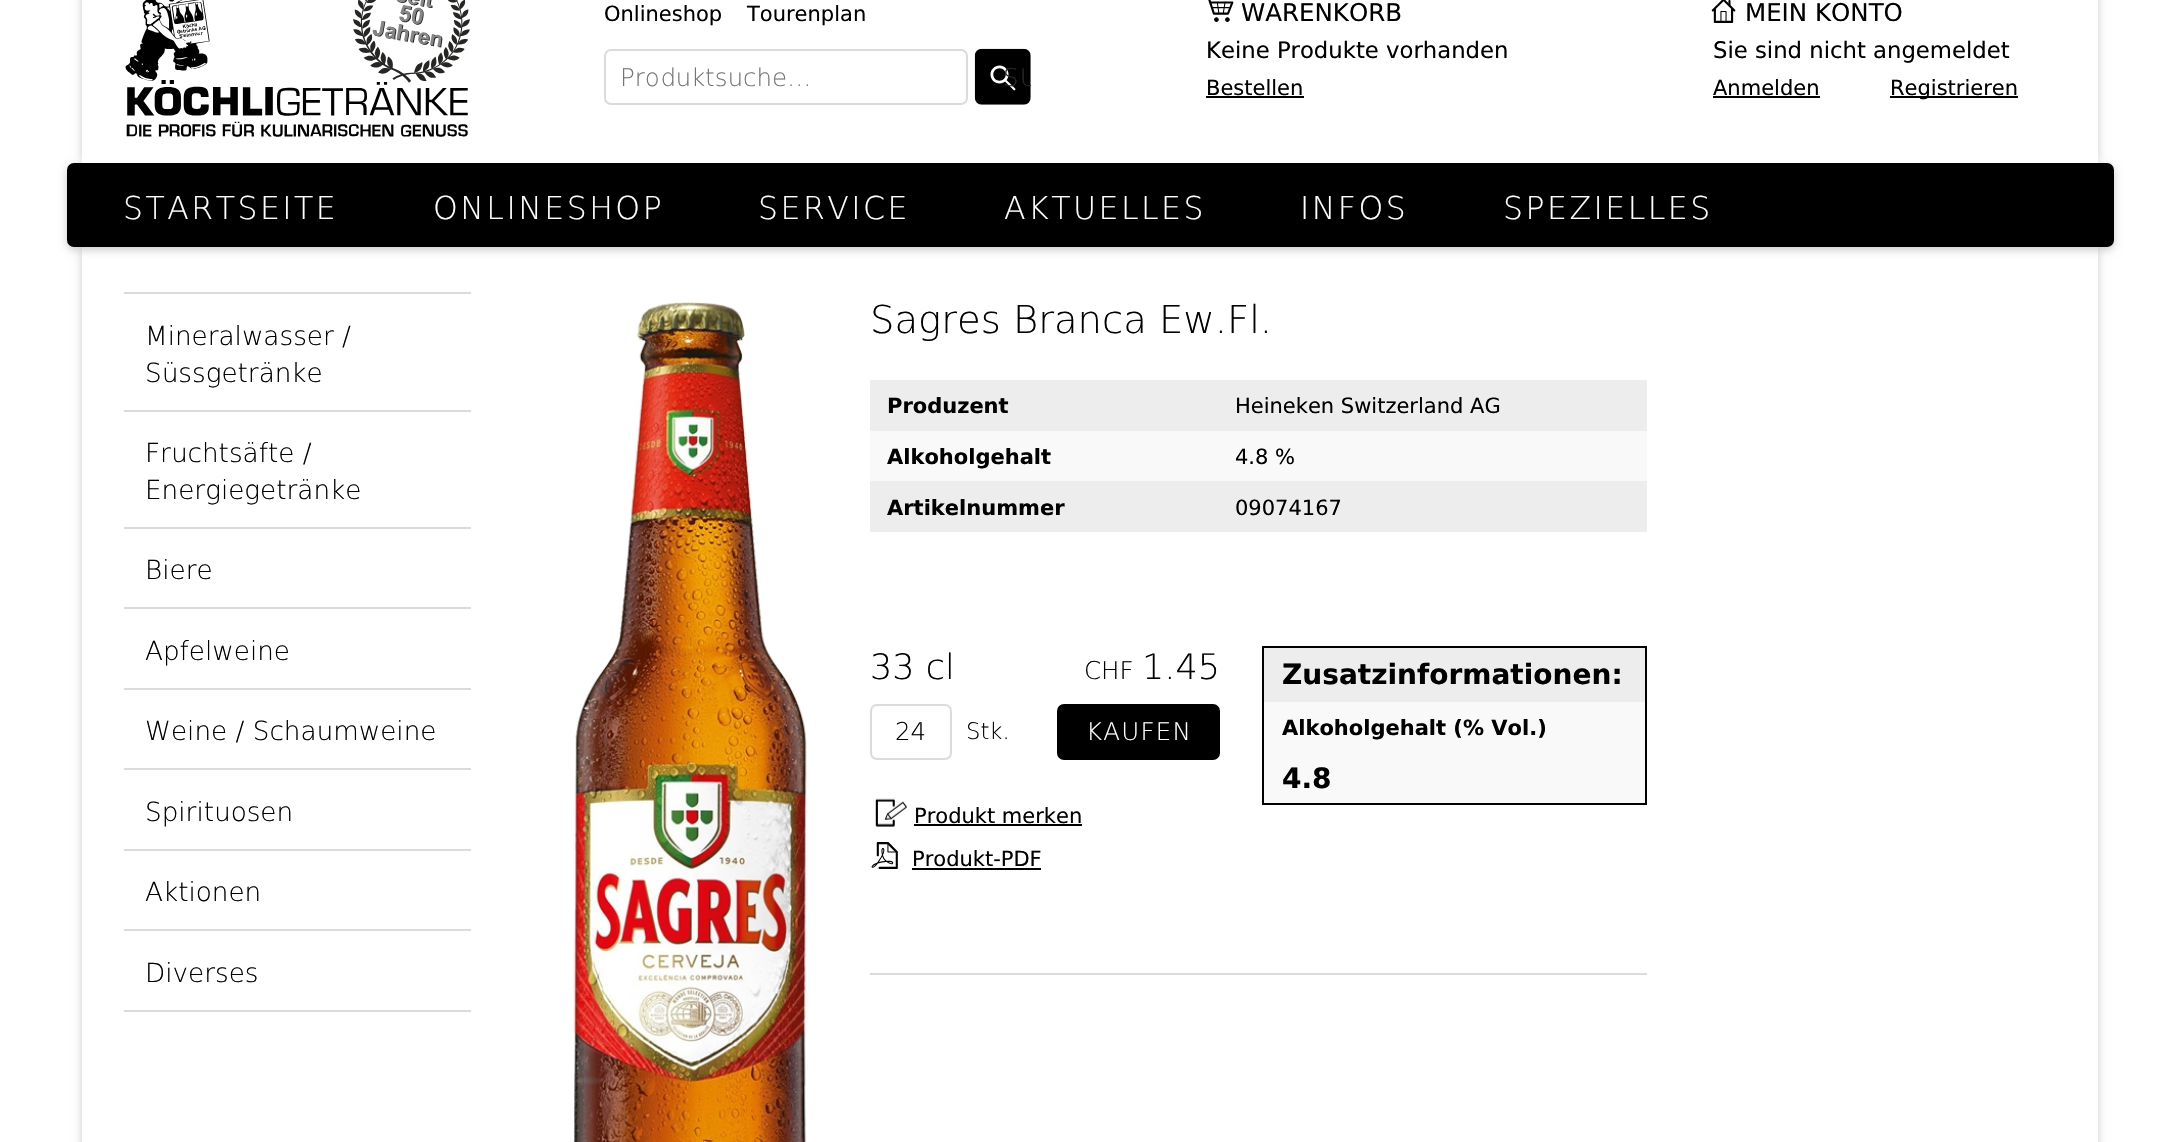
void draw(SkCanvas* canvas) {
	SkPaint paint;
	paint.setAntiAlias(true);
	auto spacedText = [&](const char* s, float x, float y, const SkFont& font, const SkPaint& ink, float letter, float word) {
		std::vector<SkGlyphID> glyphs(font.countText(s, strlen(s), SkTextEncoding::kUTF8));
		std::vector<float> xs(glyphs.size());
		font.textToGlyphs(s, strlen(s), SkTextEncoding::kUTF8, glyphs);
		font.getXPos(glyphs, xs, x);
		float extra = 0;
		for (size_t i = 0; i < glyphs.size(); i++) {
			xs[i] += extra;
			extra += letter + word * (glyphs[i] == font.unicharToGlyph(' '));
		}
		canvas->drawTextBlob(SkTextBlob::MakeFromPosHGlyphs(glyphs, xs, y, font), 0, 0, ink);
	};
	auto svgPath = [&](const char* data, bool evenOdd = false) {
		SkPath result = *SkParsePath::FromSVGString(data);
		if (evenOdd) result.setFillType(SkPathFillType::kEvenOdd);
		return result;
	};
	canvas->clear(0xffffffff);
	paint.setColor(0x33000000);
	paint.setMaskFilter(SkMaskFilter::MakeBlur(kNormal_SkBlurStyle, 4.5));
	canvas->drawRect(SkRect::MakeXYWH(82, 249, 2016, 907), paint);
	paint.setMaskFilter(nullptr);
	paint.setColor(0xffffffff);
	canvas->drawRect(SkRect::MakeXYWH(82, 247, 2016, 895), paint);
	paint.setColor(0x33000000);
	paint.setMaskFilter(SkMaskFilter::MakeBlur(kNormal_SkBlurStyle, 4.5));
	canvas->drawRoundRect(SkRect::MakeXYWH(67, 166, 2047, 84), 7, 7, paint);
	paint.setMaskFilter(nullptr);
	paint.setColor(0xff000000);
	canvas->drawRoundRect(SkRect::MakeXYWH(67, 163, 2047, 84), 7, 7, paint);
	paint.setColor(0x33000000);
	paint.setMaskFilter(SkMaskFilter::MakeBlur(kNormal_SkBlurStyle, 4.5));
	canvas->drawRect(SkRect::MakeXYWH(82, -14, 2016, 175), paint);
	paint.setMaskFilter(nullptr);
	paint.setColor(0xffffffff);
	canvas->drawRect(SkRect::MakeXYWH(82, 0, 2016, 163), paint);
	canvas->drawImageRect(SkImages::DeferredFromEncodedData(SkData::MakeFromFileName("img1.png")), SkRect::MakeXYWH(125, 0, 345, 137), SkSamplingOptions());
	SkFont f1(fontMgr->matchFamilyStyle("DejaVu Sans", SkFontStyle::Normal()), 21);
	f1.setSubpixel(true);
	paint.setColor(0xff000000);
	canvas->drawString("Onlineshop", 604, 21, f1, paint);
	canvas->drawString("Tourenplan", 747, 21, f1, paint);
	paint.setStroke(true);
	paint.setStrokeWidth(2);
	paint.setColor(0xffdbdbdb);
	canvas->drawRoundRect(SkRect::MakeXYWH(605, 50, 362, 54), 6, 6, paint);
	SkFont f2(fontMgr->matchFamilyStyle("DejaVu Sans", SkFontStyle(200, SkFontStyle::kNormal_Width, SkFontStyle::kUpright_Slant)), 24.5);
	f2.setSubpixel(true);
	paint.setStroke(false);
	paint.setColor(0xff757575);
	canvas->drawString("Produktsuche…", 620, 86, f2, paint);
	canvas->drawImageRect(SkImages::DeferredFromEncodedData(SkData::MakeFromFileName("img2.png")), SkRect::MakeXYWH(974, 48, 57, 57), SkSamplingOptions());
	canvas->save();
	canvas->clipPath(svgPath("M982 49H1024C1028 49 1031 52 1031 56V98C1031 102 1028 105 1024 105H982C978 105 975 102 975 98V56C975 52 978 49 982 49Z"), true);
	paint.setColor(0xff282828);
	spacedText("SU", 1003, 86, f2, paint, 1.25, 0);
	canvas->restore();
	canvas->drawImageRect(SkImages::DeferredFromEncodedData(SkData::MakeFromFileName("img3.png")), SkRect::MakeXYWH(1208, 0, 26, 22), SkSamplingOptions());
	SkFont f3(fontMgr->matchFamilyStyle("DejaVu Sans", SkFontStyle::Normal()), 24.5);
	f3.setSubpixel(true);
	paint.setColor(0xff000000);
	canvas->drawString("WARENKORB", 1241, 21, f3, paint);
	SkFont f4(fontMgr->matchFamilyStyle("DejaVu Sans", SkFontStyle::Normal()), 22.75);
	f4.setSubpixel(true);
	canvas->drawString("Keine Produkte vorhanden", 1206, 58, f4, paint);
	canvas->drawString("Bestellen", 1206, 95, f1, paint);
	canvas->drawRect(SkRect::MakeXYWH(1206, 96, 98, 2), paint);
	canvas->drawImageRect(SkImages::DeferredFromEncodedData(SkData::MakeFromFileName("img4.png")), SkRect::MakeXYWH(1711, 0, 25, 23), SkSamplingOptions());
	canvas->drawString("MEIN KONTO", 1745, 21, f3, paint);
	canvas->drawString("Sie sind nicht angemeldet", 1713, 58, f4, paint);
	canvas->drawString("Anmelden", 1713, 95, f1, paint);
	canvas->drawRect(SkRect::MakeXYWH(1713, 96, 107, 2), paint);
	canvas->drawRect(SkRect::MakeXYWH(1890, 96, 128, 2), paint);
	canvas->drawString("Registrieren", 1890, 95, f1, paint);
	SkFont f5(fontMgr->matchFamilyStyle("DejaVu Sans", SkFontStyle(200, SkFontStyle::kNormal_Width, SkFontStyle::kUpright_Slant)), 31.5);
	f5.setSubpixel(true);
	paint.setColor(0xffffffff);
	spacedText("STARTSEITE", 123, 219, f5, paint, 2.5, 0);
	spacedText("ONLINESHOP", 433, 219, f5, paint, 2.5, 0);
	spacedText("SERVICE", 758, 219, f5, paint, 2.5, 0);
	spacedText("AKTUELLES", 1004, 219, f5, paint, 2.5, 0);
	spacedText("INFOS", 1300, 219, f5, paint, 2.5, 0);
	spacedText("SPEZIELLES", 1503, 219, f5, paint, 2.5, 0);
	paint.setColor(0xffdbdbdb);
	canvas->drawRect(SkRect::MakeXYWH(124, 292, 347, 2), paint);
	SkFont f6(fontMgr->matchFamilyStyle("DejaVu Sans", SkFontStyle(200, SkFontStyle::kNormal_Width, SkFontStyle::kUpright_Slant)), 26.25);
	f6.setSubpixel(true);
	paint.setColor(0xff000000);
	canvas->drawString("Mineralwasser /", 145, 345, f6, paint);
	canvas->drawString("Süssgetränke", 145, 382, f6, paint);
	paint.setColor(0xffdbdbdb);
	canvas->drawRect(SkRect::MakeXYWH(124, 410, 347, 2), paint);
	paint.setColor(0xff000000);
	canvas->drawString("Fruchtsäfte /", 145, 462, f6, paint);
	canvas->drawString("Energiegetränke", 145, 499, f6, paint);
	paint.setColor(0xffdbdbdb);
	canvas->drawRect(SkRect::MakeXYWH(124, 527, 347, 2), paint);
	paint.setColor(0xff000000);
	canvas->drawString("Biere", 145, 579, f6, paint);
	paint.setColor(0xffdbdbdb);
	canvas->drawRect(SkRect::MakeXYWH(124, 607, 347, 2), paint);
	paint.setColor(0xff000000);
	canvas->drawString("Apfelweine", 145, 660, f6, paint);
	paint.setColor(0xffdbdbdb);
	canvas->drawRect(SkRect::MakeXYWH(124, 688, 347, 2), paint);
	paint.setColor(0xff000000);
	canvas->drawString("Weine / Schaumweine", 145, 740, f6, paint);
	paint.setColor(0xffdbdbdb);
	canvas->drawRect(SkRect::MakeXYWH(124, 768, 347, 2), paint);
	paint.setColor(0xff000000);
	canvas->drawString("Spirituosen", 145, 821, f6, paint);
	paint.setColor(0xffdbdbdb);
	canvas->drawRect(SkRect::MakeXYWH(124, 849, 347, 2), paint);
	paint.setColor(0xff000000);
	canvas->drawString("Aktionen", 145, 901, f6, paint);
	paint.setColor(0xffdbdbdb);
	canvas->drawRect(SkRect::MakeXYWH(124, 929, 347, 2), paint);
	canvas->drawRect(SkRect::MakeXYWH(124, 1010, 347, 2), paint);
	paint.setColor(0xff000000);
	canvas->drawString("Diverses", 145, 982, f6, paint);
	canvas->drawImageRect(SkImages::DeferredFromEncodedData(SkData::MakeFromFileName("img5.png")), SkRect::MakeXYWH(573, 301, 234, 841), SkSamplingOptions());
	SkFont f7(fontMgr->matchFamilyStyle("DejaVu Sans", SkFontStyle(200, SkFontStyle::kNormal_Width, SkFontStyle::kUpright_Slant)), 38.5);
	f7.setSubpixel(true);
	canvas->drawString("Sagres Branca Ew.Fl.", 870, 333, f7, paint);
	paint.setColor(0xffededed);
	canvas->drawRect(SkRect::MakeXYWH(870, 380, 777, 51), paint);
	SkFont f8(fontMgr->matchFamilyStyle("DejaVu Sans", SkFontStyle::Bold()), 21);
	f8.setSubpixel(true);
	paint.setColor(0xff000000);
	canvas->drawString("Produzent", 887, 413, f8, paint);
	canvas->drawString("Heineken Switzerland AG", 1235, 413, f1, paint);
	paint.setColor(0xfff9f9f9);
	canvas->drawRect(SkRect::MakeXYWH(870, 431, 777, 50), paint);
	paint.setColor(0xff000000);
	canvas->drawString("Alkoholgehalt", 887, 464, f8, paint);
	canvas->drawString("4.8 %", 1235, 464, f1, paint);
	paint.setColor(0xffededed);
	canvas->drawRect(SkRect::MakeXYWH(870, 481, 777, 51), paint);
	paint.setColor(0xff000000);
	canvas->drawString("Artikelnummer", 887, 515, f8, paint);
	canvas->drawString("09074167", 1235, 515, f1, paint);
	SkFont f9(fontMgr->matchFamilyStyle("DejaVu Sans", SkFontStyle(200, SkFontStyle::kNormal_Width, SkFontStyle::kUpright_Slant)), 35);
	f9.setSubpixel(true);
	canvas->drawString("33 cl", 870, 679, f9, paint);
	canvas->drawString("CHF", 1084, 679, f2, paint);
	canvas->drawString("1.45", 1142, 679, f9, paint);
	paint.setStroke(true);
	paint.setColor(0xffdbdbdb);
	canvas->drawRoundRect(SkRect::MakeXYWH(871, 705, 80, 54), 6, 6, paint);
	paint.setStroke(false);
	paint.setColor(0xff000000);
	canvas->drawString("24", 895, 740, f2, paint);
	SkFont f10(fontMgr->matchFamilyStyle("DejaVu Sans", SkFontStyle(200, SkFontStyle::kNormal_Width, SkFontStyle::kUpright_Slant)), 22.75);
	f10.setSubpixel(true);
	canvas->drawString("Stk.", 966, 739, f10, paint);
	canvas->drawRoundRect(SkRect::MakeXYWH(1057, 704, 163, 56), 7, 7, paint);
	paint.setColor(0xffffffff);
	spacedText("KAUFEN", 1086, 740, f2, paint, 1.25, 0);
	paint.setStroke(true);
	paint.setColor(0xff000000);
	canvas->drawRect(SkRect::MakeXYWH(1263, 647, 383, 157), paint);
	paint.setStroke(false);
	paint.setColor(0xffededed);
	canvas->drawRect(SkRect::MakeXYWH(1264, 648, 381, 54), paint);
	SkFont f11(fontMgr->matchFamilyStyle("DejaVu Sans", SkFontStyle::Bold()), 28);
	f11.setSubpixel(true);
	paint.setColor(0xff000000);
	canvas->drawString("Zusatzinformationen:", 1282, 684, f11, paint);
	paint.setColor(0xfff9f9f9);
	canvas->drawRect(SkRect::MakeXYWH(1264, 702, 381, 101), paint);
	paint.setColor(0xff000000);
	canvas->drawString("Alkoholgehalt (% Vol.)", 1282, 735, f8, paint);
	canvas->drawString("4.8", 1282, 788, f11, paint);
	canvas->drawImageRect(SkImages::DeferredFromEncodedData(SkData::MakeFromFileName("img6.png")), SkRect::MakeXYWH(875, 798, 32, 29), SkSamplingOptions());
	canvas->drawString("Produkt merken", 914, 823, f1, paint);
	canvas->drawRect(SkRect::MakeXYWH(914, 824, 168, 2), paint);
	canvas->drawImageRect(SkImages::DeferredFromEncodedData(SkData::MakeFromFileName("img7.png")), SkRect::MakeXYWH(871, 842, 27, 27), SkSamplingOptions());
	canvas->drawString("Produkt-PDF", 912, 866, f1, paint);
	canvas->drawRect(SkRect::MakeXYWH(912, 868, 129, 2), paint);
	paint.setColor(0xffdbdbdb);
	canvas->drawRect(SkRect::MakeXYWH(870, 973, 777, 2), paint);
}
